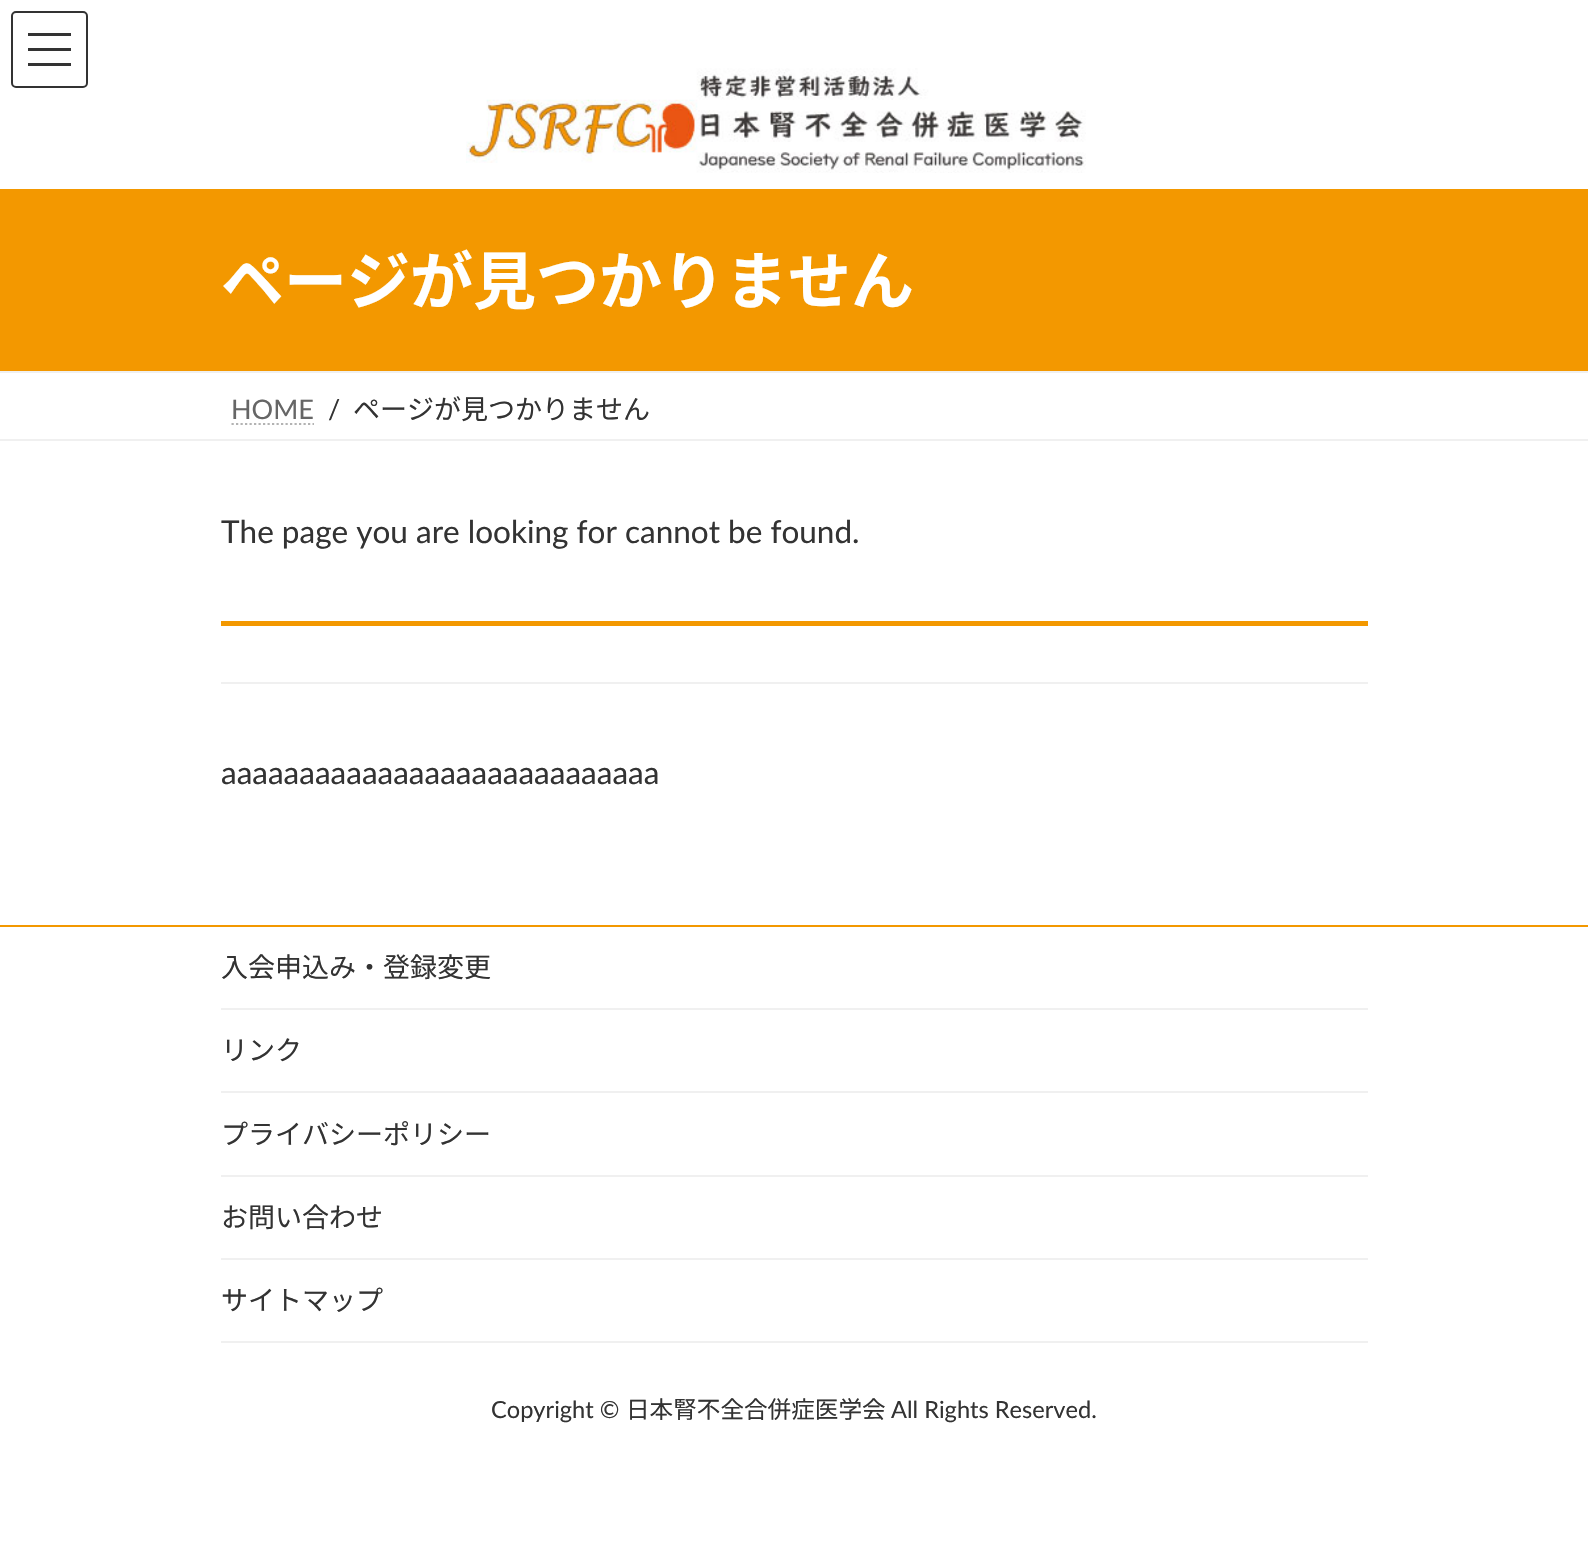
void draw(SkCanvas* canvas) {
	SkPaint paint;
	paint.setAntiAlias(true);
	auto svgPath = [&](const char* data, bool evenOdd = false) {
		SkPath result = *SkParsePath::FromSVGString(data);
		if (evenOdd) result.setFillType(SkPathFillType::kEvenOdd);
		return result;
	};
	canvas->clear(0xffffffff);
	paint.setColor(0xff333333);
	canvas->drawRect(SkRect::MakeXYWH(28, 33, 43, 3), paint);
	canvas->drawRect(SkRect::MakeXYWH(28, 48, 43, 3), paint);
	canvas->drawRect(SkRect::MakeXYWH(28, 63, 43, 3), paint);
	paint.setStroke(true);
	paint.setStrokeWidth(2);
	canvas->drawRoundRect(SkRect::MakeXYWH(12, 12, 75, 75), 4, 4, paint);
	canvas->drawImageRect(SkImages::DeferredFromEncodedData(SkData::MakeFromFileName("img1.png")), SkRect::MakeXYWH(466, 68, 620, 105), SkSamplingOptions());
	paint.setStroke(false);
	paint.setColor(0xfff39800);
	canvas->drawRect(SkRect::MakeXYWH(0, 189, 1588, 182), paint);
	SkFont f1(fontMgr->matchFamilyStyle("Noto Sans JP", SkFontStyle::Bold()), 63);
	f1.setSubpixel(true);
	paint.setColor(0xffffffff);
	canvas->drawString("ページが見つかりません", 221, 304, f1, paint);
	paint.setColor(0xfff0f0f0);
	canvas->drawRect(SkRect::MakeXYWH(0, 371, 1588, 2), paint);
	canvas->drawRect(SkRect::MakeXYWH(0, 439, 1588, 2), paint);
	SkFont f2(fontMgr->matchFamilyStyle("Lato", SkFontStyle::Normal()), 27);
	f2.setSubpixel(true);
	paint.setColor(0xff666666);
	canvas->drawString("HOME", 231, 419, f2, paint);
	paint.setStroke(true);
	paint.setStrokeWidth(2.2);
	paint.setColor(0xffb3b3b3);
	paint.setPathEffect(SkDashPathEffect::Make({{2.25f, 2.25f}}, 0));
	canvas->drawPath(svgPath("M231.5 424H314"), paint);
	paint.setPathEffect(nullptr);
	paint.setStroke(false);
	paint.setColor(0xff333333);
	canvas->drawString("/", 328, 419, f2, paint);
	SkFont f3(fontMgr->matchFamilyStyle("Noto Sans JP", SkFontStyle::Normal()), 27);
	f3.setSubpixel(true);
	canvas->drawString("ページが見つかりません", 353, 419, f3, paint);
	SkFont f4(fontMgr->matchFamilyStyle("Lato", SkFontStyle::Normal()), 31.5);
	f4.setSubpixel(true);
	canvas->drawString("The page you are looking for cannot be found.", 221, 543, f4, paint);
	paint.setColor(0xfff39800);
	canvas->drawRect(SkRect::MakeXYWH(221, 621, 1147, 5), paint);
	paint.setColor(0xfff0f0f0);
	canvas->drawRect(SkRect::MakeXYWH(221, 682, 1147, 2), paint);
	paint.setColor(0xff333333);
	canvas->drawString("aaaaaaaaaaaaaaaaaaaaaaaaaaaa", 221, 784, f4, paint);
	paint.setColor(0xfff39800);
	canvas->drawRect(SkRect::MakeXYWH(0, 925, 1588, 2), paint);
	paint.setColor(0xfff0f0f0);
	canvas->drawRect(SkRect::MakeXYWH(221, 1008, 1147, 2), paint);
	paint.setColor(0xff333333);
	canvas->drawString("入会申込み・登録変更", 221, 977, f3, paint);
	paint.setColor(0xfff0f0f0);
	canvas->drawRect(SkRect::MakeXYWH(221, 1091, 1147, 2), paint);
	paint.setColor(0xff333333);
	canvas->drawString("リンク", 221, 1060, f3, paint);
	paint.setColor(0xfff0f0f0);
	canvas->drawRect(SkRect::MakeXYWH(221, 1175, 1147, 2), paint);
	paint.setColor(0xff333333);
	canvas->drawString("プライバシーポリシー", 221, 1144, f3, paint);
	paint.setColor(0xfff0f0f0);
	canvas->drawRect(SkRect::MakeXYWH(221, 1258, 1147, 2), paint);
	paint.setColor(0xff333333);
	canvas->drawString("お問い合わせ", 221, 1227, f3, paint);
	paint.setColor(0xfff0f0f0);
	canvas->drawRect(SkRect::MakeXYWH(221, 1341, 1147, 2), paint);
	paint.setColor(0xff333333);
	canvas->drawString("サイトマップ", 221, 1310, f3, paint);
	SkFont f5(fontMgr->matchFamilyStyle("Lato", SkFontStyle::Normal()), 23.6);
	f5.setSubpixel(true);
	canvas->drawString("Copyright ©", 491, 1418, f5, paint);
	SkFont f6(fontMgr->matchFamilyStyle("Noto Sans JP", SkFontStyle::Normal()), 23.6);
	f6.setSubpixel(true);
	canvas->drawString("日本腎不全合併症医学会", 626, 1418, f6, paint);
	canvas->drawString("All Rights Reserved.", 891, 1418, f5, paint);
}
